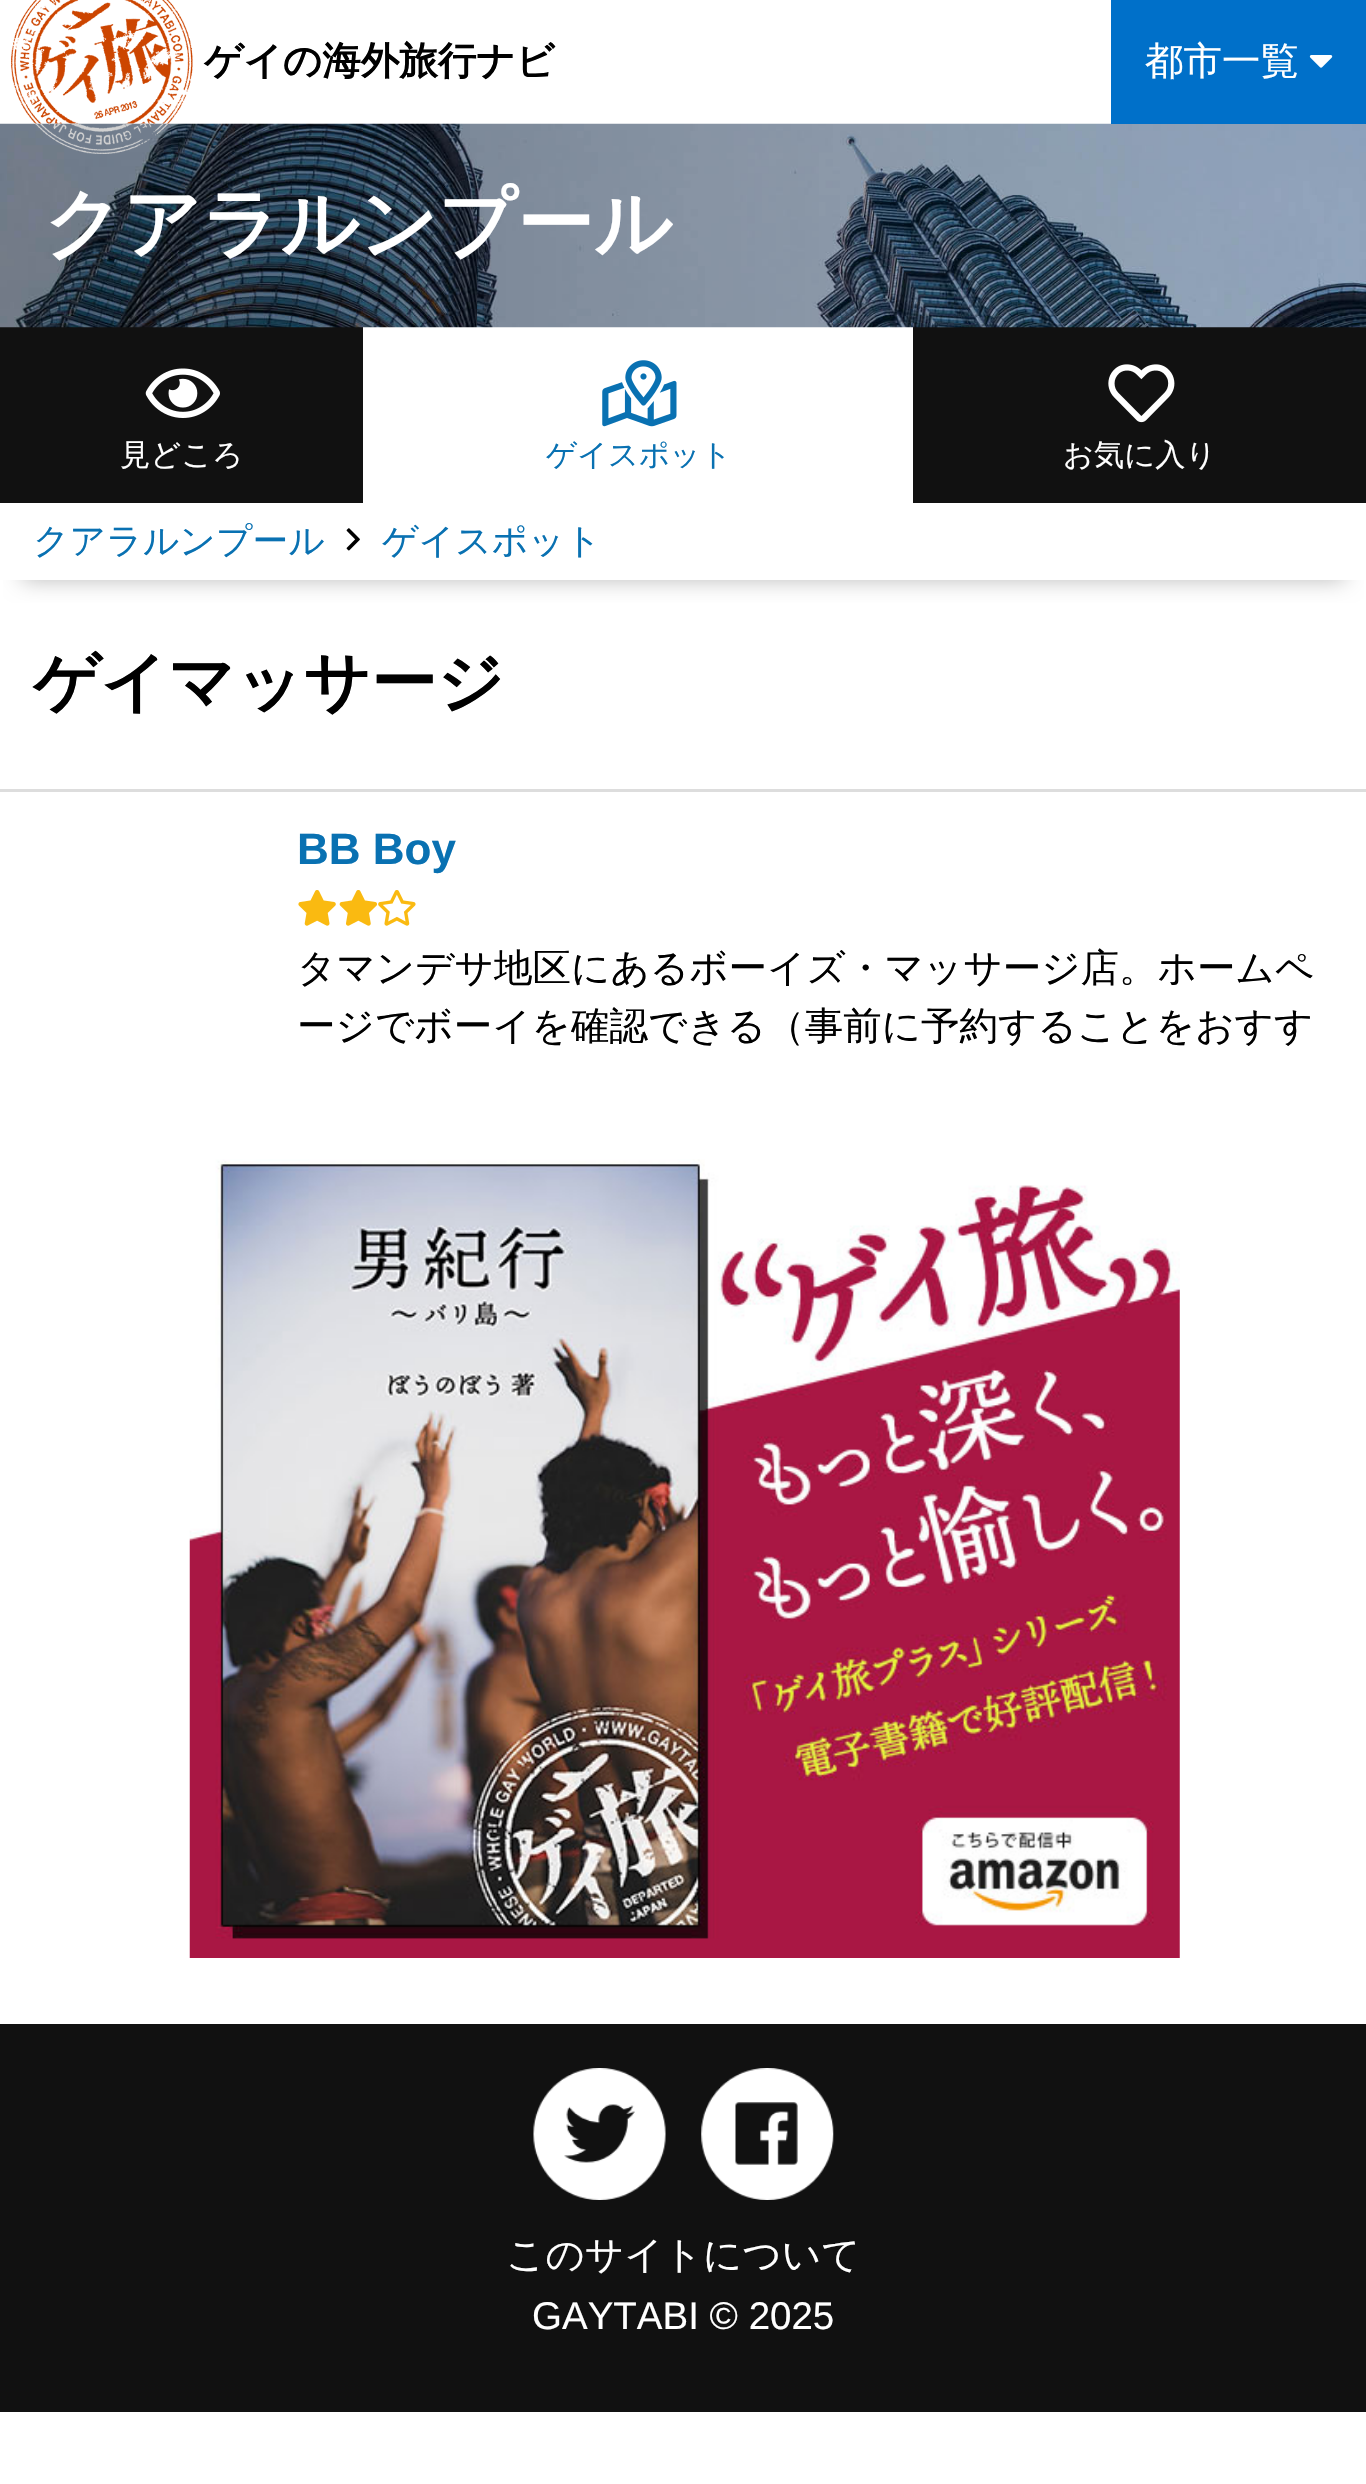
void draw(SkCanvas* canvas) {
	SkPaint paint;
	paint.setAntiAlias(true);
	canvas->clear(0xffffffff);
	canvas->drawImageRect(SkImages::DeferredFromEncodedData(SkData::MakeFromFileName("img1.png")), SkRect::MakeXYWH(11, 0, 182, 124), SkSamplingOptions());
	SkFont f1(fontMgr->matchFamilyStyle("WenQuanYi Zen Hei", SkFontStyle::Bold()), 38.5);
	f1.setSubpixel(true);
	paint.setColor(0xff000000);
	canvas->drawString("ゲイの海外旅行ナビ", 204, 74, f1, paint);
	paint.setColor(0xff111111);
	canvas->drawRect(SkRect::MakeXYWH(0, 327, 363, 176), paint);
	canvas->drawRect(SkRect::MakeXYWH(913, 327, 453, 176), paint);
	canvas->drawImageRect(SkImages::DeferredFromEncodedData(SkData::MakeFromFileName("img3.png")), SkRect::MakeXYWH(0, 123, 1366, 205), SkSamplingOptions());
	paint.setColor(0xff0070c9);
	canvas->drawRect(SkRect::MakeXYWH(1111, 0, 255, 124), paint);
	SkFont f2(fontMgr->matchFamilyStyle("WenQuanYi Zen Hei", SkFontStyle(500, SkFontStyle::kNormal_Width, SkFontStyle::kUpright_Slant)), 38.5);
	f2.setSubpixel(true);
	paint.setColor(0xffffffff);
	canvas->drawString("都市一覧", 1145, 74, f2, paint);
	canvas->drawImageRect(SkImages::DeferredFromEncodedData(SkData::MakeFromFileName("img2.png")), SkRect::MakeXYWH(1309, 55, 24, 13), SkSamplingOptions());
	canvas->drawImageRect(SkImages::DeferredFromEncodedData(SkData::MakeFromFileName("img4.png")), SkRect::MakeXYWH(35, 123, 133, 31), SkSamplingOptions());
	SkFont f3(fontMgr->matchFamilyStyle("WenQuanYi Zen Hei", SkFontStyle::Bold()), 77);
	f3.setSubpixel(true);
	canvas->drawString("クアラルンプール", 44, 250, f3, paint);
	canvas->drawImageRect(SkImages::DeferredFromEncodedData(SkData::MakeFromFileName("img5.png")), SkRect::MakeXYWH(145, 368, 75, 50), SkSamplingOptions());
	SkFont f4(fontMgr->matchFamilyStyle("WenQuanYi Zen Hei", SkFontStyle(500, SkFontStyle::kNormal_Width, SkFontStyle::kUpright_Slant)), 30.25);
	f4.setSubpixel(true);
	canvas->drawString("見どころ", 120, 465, f4, paint);
	canvas->drawImageRect(SkImages::DeferredFromEncodedData(SkData::MakeFromFileName("img6.png")), SkRect::MakeXYWH(602, 360, 75, 67), SkSamplingOptions());
	paint.setColor(0xff0971b2);
	canvas->drawString("ゲイスポット", 546, 465, f4, paint);
	canvas->drawImageRect(SkImages::DeferredFromEncodedData(SkData::MakeFromFileName("img7.png")), SkRect::MakeXYWH(1108, 364, 67, 59), SkSamplingOptions());
	paint.setColor(0xffffffff);
	canvas->drawString("お気に入り", 1063, 465, f4, paint);
	canvas->save();
	canvas->clipRect(SkRect::MakeXYWH(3, 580, 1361, 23));
	paint.setColor(0xffbbbbbb);
	paint.setMaskFilter(SkMaskFilter::MakeBlur(kNormal_SkBlurStyle, 11));
	canvas->drawRect(SkRect::MakeXYWH(22, 547, 1323, 33), paint);
	paint.setMaskFilter(nullptr);
	canvas->restore();
	SkFont f5(fontMgr->matchFamilyStyle("WenQuanYi Zen Hei", SkFontStyle(500, SkFontStyle::kNormal_Width, SkFontStyle::kUpright_Slant)), 35.75);
	f5.setSubpixel(true);
	paint.setColor(0xff0971b2);
	canvas->drawString("クアラルンプール", 33, 553, f5, paint);
	canvas->drawImageRect(SkImages::DeferredFromEncodedData(SkData::MakeFromFileName("img8.png")), SkRect::MakeXYWH(346, 528, 14, 23), SkSamplingOptions());
	canvas->drawString("ゲイスポット", 382, 553, f5, paint);
	SkFont f6(fontMgr->matchFamilyStyle("WenQuanYi Zen Hei", SkFontStyle::Bold()), 66);
	f6.setSubpixel(true);
	paint.setColor(0xff000000);
	canvas->drawString("ゲイマッサージ", 33, 705, f6, paint);
	paint.setColor(0xffdddddd);
	canvas->drawRect(SkRect::MakeXYWH(0, 789, 1366, 3), paint);
	SkFont f7(fontMgr->matchFamilyStyle("Liberation Sans", SkFontStyle::Bold()), 44);
	f7.setSubpixel(true);
	paint.setColor(0xff0971b2);
	canvas->drawString("BB Boy", 297, 864, f7, paint);
	canvas->drawImageRect(SkImages::DeferredFromEncodedData(SkData::MakeFromFileName("img9.png")), SkRect::MakeXYWH(298, 890, 38, 36), SkSamplingOptions());
	canvas->drawImageRect(SkImages::DeferredFromEncodedData(SkData::MakeFromFileName("img10.png")), SkRect::MakeXYWH(339, 890, 38, 36), SkSamplingOptions());
	canvas->drawImageRect(SkImages::DeferredFromEncodedData(SkData::MakeFromFileName("img11.png")), SkRect::MakeXYWH(378, 890, 38, 36), SkSamplingOptions());
	paint.setColor(0xff000000);
	canvas->drawString("タマンデサ地区にあるボーイズ・マッサージ店。ホームペ", 297, 981, f2, paint);
	canvas->drawString("ージでボーイを確認できる（事前に予約することをおすす", 297, 1039, f2, paint);
	canvas->drawImageRect(SkImages::DeferredFromEncodedData(SkData::MakeFromFileName("img12.png")), SkRect::MakeXYWH(189, 1159, 991, 799), SkSamplingOptions());
	paint.setColor(0xff111111);
	canvas->drawRect(SkRect::MakeXYWH(0, 2024, 1366, 388), paint);
	canvas->drawImageRect(SkImages::DeferredFromEncodedData(SkData::MakeFromFileName("img13.png")), SkRect::MakeXYWH(533, 2068, 133, 132), SkSamplingOptions());
	canvas->drawImageRect(SkImages::DeferredFromEncodedData(SkData::MakeFromFileName("img14.png")), SkRect::MakeXYWH(701, 2068, 133, 132), SkSamplingOptions());
	paint.setColor(0xffffffff);
	canvas->drawString("このサイトについて", 506, 2268, f2, paint);
	SkFont f8(fontMgr->matchFamilyStyle("Liberation Sans", SkFontStyle::Normal()), 38.5);
	f8.setSubpixel(true);
	canvas->drawString("GAYTABI © 2025", 532, 2329, f8, paint);
}
